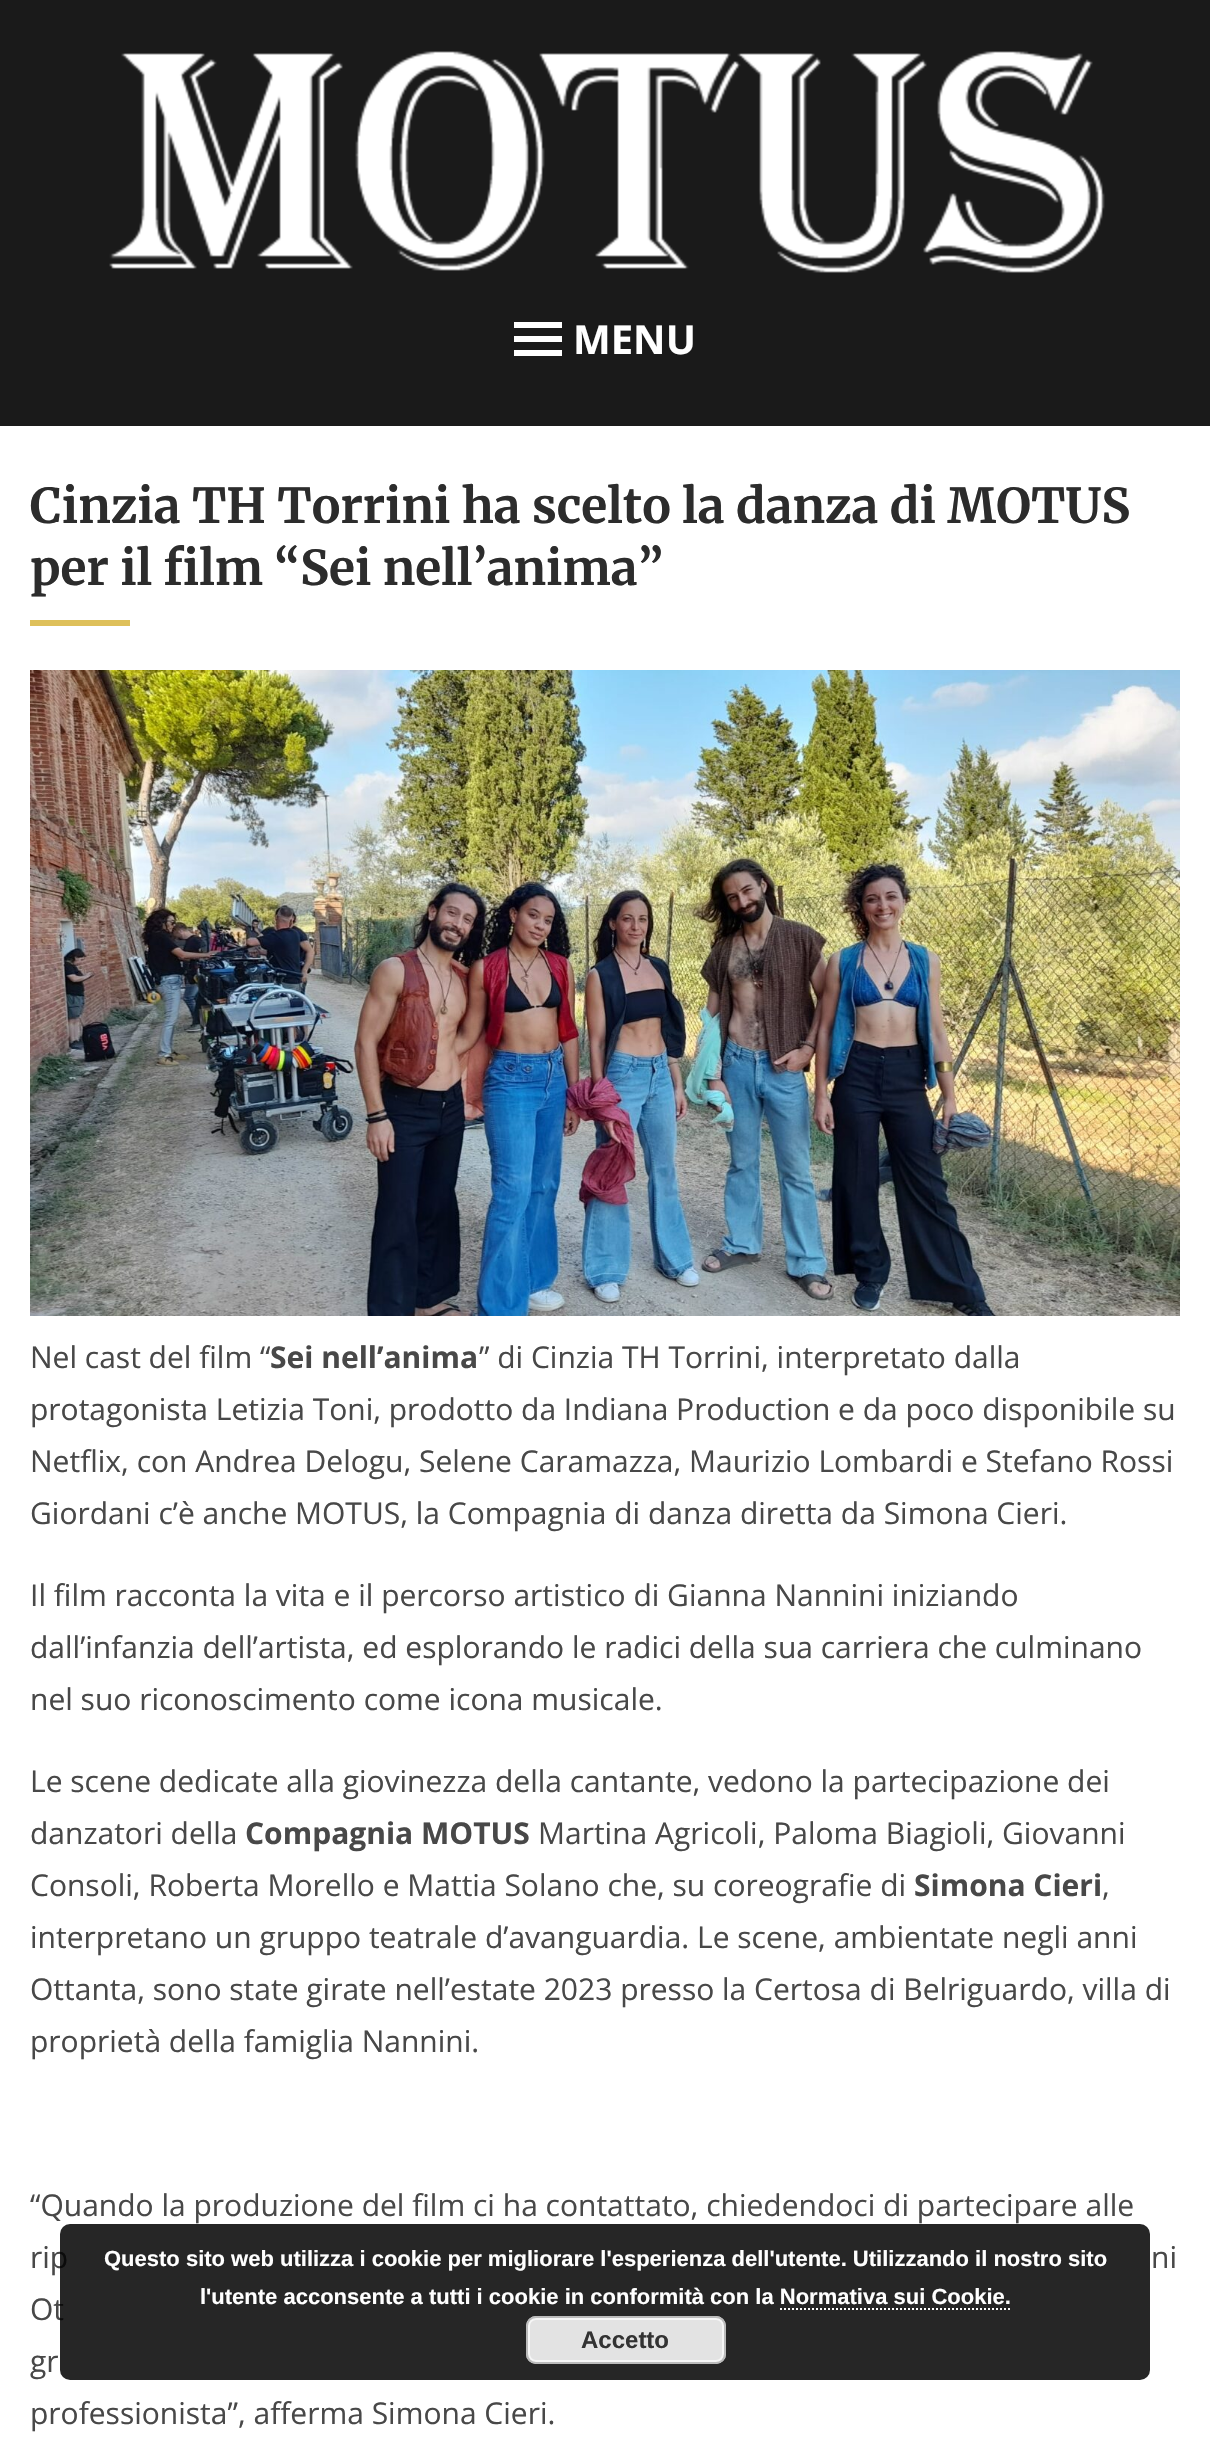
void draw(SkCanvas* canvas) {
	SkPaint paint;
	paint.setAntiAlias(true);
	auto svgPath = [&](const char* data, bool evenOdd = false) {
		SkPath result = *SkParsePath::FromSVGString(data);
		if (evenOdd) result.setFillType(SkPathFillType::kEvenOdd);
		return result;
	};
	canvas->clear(0xff1a1a1a);
	canvas->drawImageRect(SkImages::DeferredFromEncodedData(SkData::MakeFromFileName("img1.png")), SkRect::MakeXYWH(109, 51, 996, 222), SkSamplingOptions());
	paint.setColor(0xffffffff);
	canvas->drawRect(SkRect::MakeXYWH(514, 336, 48, 6), paint);
	canvas->drawRect(SkRect::MakeXYWH(514, 322, 48, 6), paint);
	canvas->drawRect(SkRect::MakeXYWH(514, 350, 48, 6), paint);
	SkFont f1(fontMgr->matchFamilyStyle("Open Sans", SkFontStyle::Bold()), 40);
	f1.setSubpixel(true);
	canvas->drawString("MENU", 573, 354, f1, paint);
	canvas->drawRect(SkRect::MakeXYWH(0, 426, 1210, 2014), paint);
	SkFont f2(fontMgr->matchFamilyStyle("Merriweather", SkFontStyle::Bold()), 48);
	f2.setSubpixel(true);
	paint.setColor(0xff2c2c2c);
	canvas->drawString("Cinzia TH Torrini ha scelto la danza di MOTUS", 30, 523, f2, paint);
	canvas->drawString("per il film “Sei nell’anima”", 30, 585, f2, paint);
	paint.setColor(0xffdec05a);
	canvas->drawRect(SkRect::MakeXYWH(30, 620, 100, 6), paint);
	canvas->drawImageRect(SkImages::DeferredFromEncodedData(SkData::MakeFromFileName("img2.png")), SkRect::MakeXYWH(30, 670, 1150, 646), SkSamplingOptions());
	SkFont f3(fontMgr->matchFamilyStyle("Open Sans", SkFontStyle::Normal()), 30);
	f3.setSubpixel(true);
	paint.setColor(0xff484848);
	canvas->drawString("Nel cast del film “", 30, 1368, f3, paint);
	SkFont f4(fontMgr->matchFamilyStyle("Open Sans", SkFontStyle::Bold()), 30);
	f4.setSubpixel(true);
	canvas->drawString("Sei nell’anima", 270, 1368, f4, paint);
	canvas->drawString("” di Cinzia TH Torrini, interpretato dalla", 479, 1368, f3, paint);
	canvas->drawString("protagonista Letizia Toni, prodotto da Indiana Production e da poco disponibile su", 30, 1420, f3, paint);
	canvas->drawString("Netflix, con Andrea Delogu, Selene Caramazza, Maurizio Lombardi e Stefano Rossi", 30, 1472, f3, paint);
	canvas->drawString("Giordani c’è anche MOTUS, la Compagnia di danza diretta da Simona Cieri.", 30, 1524, f3, paint);
	canvas->drawString("Il film racconta la vita e il percorso artistico di Gianna Nannini iniziando", 30, 1606, f3, paint);
	canvas->drawString("dall’infanzia dell’artista, ed esplorando le radici della sua carriera che culminano", 30, 1658, f3, paint);
	canvas->drawString("nel suo riconoscimento come icona musicale.", 30, 1710, f3, paint);
	canvas->drawString("Le scene dedicate alla giovinezza della cantante, vedono la partecipazione dei", 30, 1792, f3, paint);
	canvas->drawString("danzatori della", 30, 1844, f3, paint);
	canvas->drawString("Compagnia MOTUS", 245, 1844, f4, paint);
	canvas->drawString("Martina Agricoli, Paloma Biagioli, Giovanni", 538, 1844, f3, paint);
	canvas->drawString("Consoli, Roberta Morello e Mattia Solano che, su coreografie di", 30, 1896, f3, paint);
	canvas->drawString("Simona Cieri", 914, 1896, f4, paint);
	canvas->drawString(",", 1102, 1896, f3, paint);
	canvas->drawString("interpretano un gruppo teatrale d’avanguardia. Le scene, ambientate negli anni", 30, 1948, f3, paint);
	canvas->drawString("Ottanta, sono state girate nell’estate 2023 presso la Certosa di Belriguardo, villa di", 30, 2000, f3, paint);
	canvas->drawString("proprietà della famiglia Nannini.", 30, 2052, f3, paint);
	canvas->drawString("“Quando la produzione del film ci ha contattato, chiedendoci di partecipare alle", 30, 2216, f3, paint);
	canvas->drawString("rip", 30, 2268, f3, paint);
	canvas->drawString("ni", 1151, 2268, f3, paint);
	canvas->drawString("Ot", 30, 2320, f3, paint);
	canvas->drawString("gr", 30, 2372, f3, paint);
	canvas->drawString("professionista”, afferma Simona Cieri.", 30, 2424, f3, paint);
	paint.setColor(0xd9000000);
	canvas->drawRoundRect(SkRect::MakeXYWH(60, 2224, 1090, 156), 10, 10, paint);
	SkFont f5(fontMgr->matchFamilyStyle("Liberation Sans", SkFontStyle::Bold()), 22);
	f5.setSubpixel(true);
	paint.setColor(0xffffffff);
	canvas->drawString("Questo sito web utilizza i cookie per migliorare l'esperienza dell'utente. Utilizzando il nostro sito", 104, 2266, f5, paint);
	canvas->drawString("l'utente acconsente a tutti i cookie in conformità con la Normativa sui Cookie.", 200, 2304, f5, paint);
	paint.setStroke(true);
	paint.setStrokeWidth(2);
	paint.setPathEffect(SkDashPathEffect::Make({{2, 2}}, 0));
	canvas->drawPath(svgPath("M780 2309H1010"), paint);
	paint.setPathEffect(nullptr);
	paint.setStroke(false);
	paint.setColor(0xffe3e3e3);
	canvas->drawRoundRect(SkRect::MakeXYWH(526, 2316, 200, 48), 10, 10, paint);
	paint.setStroke(true);
	paint.setColor(0xfff6f6f6);
	canvas->drawRoundRect(SkRect::MakeXYWH(529, 2319, 194, 42), 7, 7, paint);
	paint.setColor(0xffbbbbbb);
	canvas->drawRoundRect(SkRect::MakeXYWH(527, 2317, 198, 46), 9, 9, paint);
	SkFont f6(fontMgr->matchFamilyStyle("Liberation Sans", SkFontStyle::Bold()), 24);
	f6.setSubpixel(true);
	paint.setStroke(false);
	paint.setColor(0xff333333);
	canvas->drawString("Accetto", 581, 2348, f6, paint);
}
